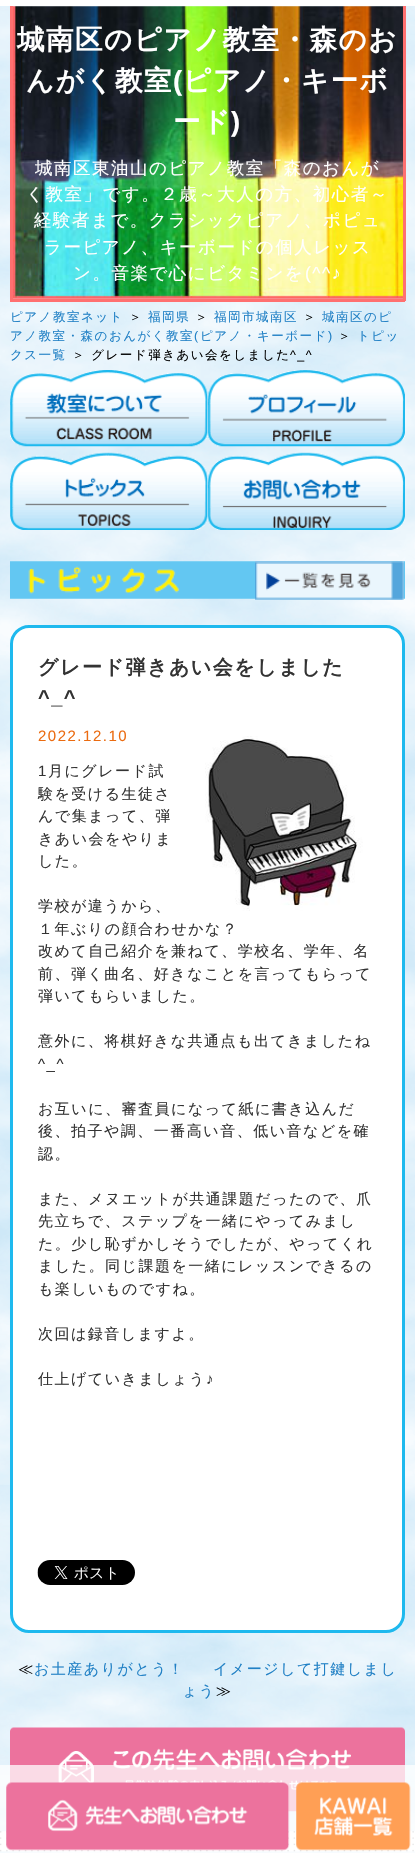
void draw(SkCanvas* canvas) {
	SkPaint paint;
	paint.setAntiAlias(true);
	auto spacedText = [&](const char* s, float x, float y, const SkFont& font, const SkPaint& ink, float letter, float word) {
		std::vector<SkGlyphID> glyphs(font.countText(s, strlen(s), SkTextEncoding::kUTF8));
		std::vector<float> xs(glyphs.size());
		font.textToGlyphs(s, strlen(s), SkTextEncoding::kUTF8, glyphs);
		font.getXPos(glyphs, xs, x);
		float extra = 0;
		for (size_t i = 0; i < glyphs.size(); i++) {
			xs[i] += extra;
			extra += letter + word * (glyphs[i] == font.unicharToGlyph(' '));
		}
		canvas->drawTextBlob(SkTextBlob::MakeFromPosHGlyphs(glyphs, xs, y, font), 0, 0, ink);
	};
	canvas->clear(0xffffffff);
	canvas->drawImageRect(SkImages::DeferredFromEncodedData(SkData::MakeFromFileName("img1.png")), SkRect::MakeXYWH(0, 6, 415, 1847), SkSamplingOptions());
	canvas->drawImageRect(SkImages::DeferredFromEncodedData(SkData::MakeFromFileName("img2.png")), SkRect::MakeXYWH(13, 6, 390, 293), SkSamplingOptions());
	paint.setColor(0xffff7070);
	canvas->drawRect(SkRect::MakeXYWH(403, 6, 3, 295), paint);
	canvas->drawRect(SkRect::MakeXYWH(10, 299, 395, 3), paint);
	canvas->drawRect(SkRect::MakeXYWH(10, 6, 3, 295), paint);
	SkFont f1(fontMgr->matchFamilyStyle("WenQuanYi Zen Hei", SkFontStyle::Bold()), 27.5);
	f1.setSubpixel(true);
	paint.setColor(0xffffffff);
	spacedText("城南区のピアノ教室・森のお", 17, 49, f1, paint, 1.5, 0);
	spacedText("んがく教室", 26, 90, f1, paint, 1.5, 0);
	SkFont f2(fontMgr->matchFamilyStyle("Liberation Sans", SkFontStyle::Bold()), 27.5);
	f2.setSubpixel(true);
	spacedText("(", 173, 90, f2, paint, 1.5, 0);
	spacedText("ピアノ・キーボ", 183, 90, f1, paint, 1.5, 0);
	spacedText("ード", 173, 131, f1, paint, 1.5, 0);
	spacedText(")", 231, 131, f2, paint, 1.5, 0);
	SkFont f3(fontMgr->matchFamilyStyle("WenQuanYi Zen Hei", SkFontStyle(500, SkFontStyle::kNormal_Width, SkFontStyle::kUpright_Slant)), 17.5);
	f3.setSubpixel(true);
	spacedText("城南区東油山のピアノ教室「森のおんが", 35, 174, f3, paint, 1.5, 0);
	spacedText("く教室」です。２歳～大人の方、初心者～", 26, 200, f3, paint, 1.5, 0);
	spacedText("経験者まで。クラシックピアノ、ポピュ", 34, 226, f3, paint, 1.5, 0);
	spacedText("ラーピアノ、キーボードの個人レッス", 44, 253, f3, paint, 1.5, 0);
	spacedText("ン。音楽で心にビタミンを", 73, 279, f3, paint, 1.5, 0);
	SkFont f4(fontMgr->matchFamilyStyle("Liberation Sans", SkFontStyle::Normal()), 17.5);
	f4.setSubpixel(true);
	spacedText("(^^♪", 305, 279, f4, paint, 1.5, 0);
	SkFont f5(fontMgr->matchFamilyStyle("WenQuanYi Zen Hei", SkFontStyle(500, SkFontStyle::kNormal_Width, SkFontStyle::kUpright_Slant)), 12.5);
	f5.setSubpixel(true);
	paint.setColor(0xff2080c5);
	spacedText("ピアノ教室ネット", 10, 321, f5, paint, 1.5, 0);
	paint.setColor(0xff000000);
	spacedText("＞", 129, 321, f5, paint, 1.5, 0);
	paint.setColor(0xff2080c5);
	spacedText("福岡県", 148, 321, f5, paint, 1.5, 0);
	paint.setColor(0xff000000);
	spacedText("＞", 195, 321, f5, paint, 1.5, 0);
	paint.setColor(0xff2080c5);
	spacedText("福岡市城南区", 214, 321, f5, paint, 1.5, 0);
	paint.setColor(0xff000000);
	spacedText("＞", 303, 321, f5, paint, 1.5, 0);
	paint.setColor(0xff2080c5);
	spacedText("城南区のピ", 322, 321, f5, paint, 1.5, 0);
	spacedText("アノ教室・森のおんがく教室", 10, 340, f5, paint, 1.5, 0);
	SkFont f6(fontMgr->matchFamilyStyle("Liberation Sans", SkFontStyle::Normal()), 12.5);
	f6.setSubpixel(true);
	spacedText("(", 194, 340, f6, paint, 1.5, 0);
	spacedText("ピアノ・キーボード", 200, 340, f5, paint, 1.5, 0);
	spacedText(")", 328, 340, f6, paint, 1.5, 0);
	paint.setColor(0xff000000);
	spacedText("＞", 338, 340, f5, paint, 1.5, 0);
	paint.setColor(0xff2080c5);
	spacedText("トピッ", 357, 340, f5, paint, 1.5, 0);
	spacedText("クス一覧", 10, 359, f5, paint, 1.5, 0);
	paint.setColor(0xff000000);
	spacedText("＞ グレード弾きあい会をしました", 72, 359, f5, paint, 1.5, 0);
	spacedText("^_^", 290, 359, f6, paint, 1.5, 0);
	canvas->drawImageRect(SkImages::DeferredFromEncodedData(SkData::MakeFromFileName("img3.png")), SkRect::MakeXYWH(10, 370, 198, 77), SkSamplingOptions());
	canvas->drawImageRect(SkImages::DeferredFromEncodedData(SkData::MakeFromFileName("img4.png")), SkRect::MakeXYWH(207, 370, 198, 77), SkSamplingOptions());
	canvas->drawImageRect(SkImages::DeferredFromEncodedData(SkData::MakeFromFileName("img5.png")), SkRect::MakeXYWH(10, 452, 198, 78), SkSamplingOptions());
	canvas->drawImageRect(SkImages::DeferredFromEncodedData(SkData::MakeFromFileName("img6.png")), SkRect::MakeXYWH(207, 452, 198, 78), SkSamplingOptions());
	canvas->drawImageRect(SkImages::DeferredFromEncodedData(SkData::MakeFromFileName("img7.png")), SkRect::MakeXYWH(10, 561, 395, 38), SkSamplingOptions());
	canvas->drawImageRect(SkImages::DeferredFromEncodedData(SkData::MakeFromFileName("img8.png")), SkRect::MakeXYWH(255, 561, 149, 39), SkSamplingOptions());
	paint.setColor(0xffffffff);
	canvas->drawRoundRect(SkRect::MakeXYWH(11.5, 626.5, 392, 1005), 17.5, 17.5, paint);
	paint.setStroke(true);
	paint.setStrokeWidth(3);
	paint.setColor(0xff1eb9ee);
	canvas->drawRoundRect(SkRect::MakeXYWH(11.5, 626.5, 392, 1005), 17.5, 17.5, paint);
	SkFont f7(fontMgr->matchFamilyStyle("WenQuanYi Zen Hei", SkFontStyle::Bold()), 20);
	f7.setSubpixel(true);
	paint.setStroke(false);
	paint.setColor(0xff333333);
	spacedText("グレード弾きあい会をしました", 38, 674, f7, paint, 1.5, 0);
	SkFont f8(fontMgr->matchFamilyStyle("Liberation Sans", SkFontStyle::Bold()), 20);
	f8.setSubpixel(true);
	spacedText("^_^", 38, 704, f8, paint, 1.5, 0);
	SkFont f9(fontMgr->matchFamilyStyle("Liberation Sans", SkFontStyle::Normal()), 15);
	f9.setSubpixel(true);
	paint.setColor(0xffeb6b10);
	spacedText("2022.12.10", 38, 741, f9, paint, 1.5, 0);
	canvas->drawImageRect(SkImages::DeferredFromEncodedData(SkData::MakeFromFileName("img9.png")), SkRect::MakeXYWH(205, 736, 158, 175), SkSamplingOptions());
	paint.setColor(0xff333333);
	spacedText("1", 38, 776, f9, paint, 1.5, 0);
	SkFont f10(fontMgr->matchFamilyStyle("WenQuanYi Zen Hei", SkFontStyle(500, SkFontStyle::kNormal_Width, SkFontStyle::kUpright_Slant)), 15);
	f10.setSubpixel(true);
	spacedText("月にグレード試", 48, 776, f10, paint, 1.5, 0);
	spacedText("験を受ける生徒さ", 38, 799, f10, paint, 1.5, 0);
	spacedText("んで集まって、弾", 38, 821, f10, paint, 1.5, 0);
	spacedText("きあい会をやりま", 38, 844, f10, paint, 1.5, 0);
	spacedText("した。", 38, 866, f10, paint, 1.5, 0);
	spacedText("学校が違うから、", 38, 911, f10, paint, 1.5, 0);
	spacedText("１年ぶりの顔合わせかな？", 38, 934, f10, paint, 1.5, 0);
	spacedText("改めて自己紹介を兼ねて、学校名、学年、名", 38, 956, f10, paint, 1.5, 0);
	spacedText("前、弾く曲名、好きなことを言ってもらって", 38, 979, f10, paint, 1.5, 0);
	spacedText("弾いてもらいました。", 38, 1001, f10, paint, 1.5, 0);
	spacedText("意外に、将棋好きな共通点も出てきましたね", 38, 1046, f10, paint, 1.5, 0);
	spacedText("^_^", 38, 1069, f9, paint, 1.5, 0);
	spacedText("お互いに、審査員になって紙に書き込んだ", 38, 1114, f10, paint, 1.5, 0);
	spacedText("後、拍子や調、一番高い音、低い音などを確", 38, 1136, f10, paint, 1.5, 0);
	spacedText("認。", 38, 1159, f10, paint, 1.5, 0);
	spacedText("また、メヌエットが共通課題だったので、爪", 38, 1204, f10, paint, 1.5, 0);
	spacedText("先立ちで、ステップを一緒にやってみまし", 38, 1226, f10, paint, 1.5, 0);
	spacedText("た。少し恥ずかしそうでしたが、やってくれ", 38, 1249, f10, paint, 1.5, 0);
	spacedText("ました。同じ課題を一緒にレッスンできるの", 38, 1271, f10, paint, 1.5, 0);
	spacedText("も楽しいものですね。", 38, 1294, f10, paint, 1.5, 0);
	spacedText("次回は録音しますよ。", 38, 1339, f10, paint, 1.5, 0);
	spacedText("仕上げていきましょう", 38, 1384, f10, paint, 1.5, 0);
	spacedText("♪", 206, 1384, f9, paint, 1.5, 0);
	canvas->drawImageRect(SkImages::DeferredFromEncodedData(SkData::MakeFromFileName("img10.png")), SkRect::MakeXYWH(37, 1560, 98, 25), SkSamplingOptions());
	paint.setColor(0xff000000);
	spacedText("≪", 18, 1674, f10, paint, 1.5, 0);
	paint.setColor(0xff2080c5);
	spacedText("お土産ありがとう！", 34, 1674, f10, paint, 1.5, 0);
	spacedText("イメージして打鍵しまし", 213, 1674, f10, paint, 1.5, 0);
	spacedText("ょう", 182, 1696, f10, paint, 1.5, 0);
	paint.setColor(0xff000000);
	spacedText("≫", 216, 1696, f10, paint, 1.5, 0);
	canvas->drawImageRect(SkImages::DeferredFromEncodedData(SkData::MakeFromFileName("img11.png")), SkRect::MakeXYWH(10, 1727, 395, 85), SkSamplingOptions());
	canvas->drawImageRect(SkImages::DeferredFromEncodedData(SkData::MakeFromFileName("img14.png")), SkRect::MakeXYWH(0, 1831, 415, 21), SkSamplingOptions());
	paint.setColor(0xbdffffff);
	canvas->drawRect(SkRect::MakeXYWH(0, 1765, 415, 88), paint);
	canvas->drawImageRect(SkImages::DeferredFromEncodedData(SkData::MakeFromFileName("img12.png")), SkRect::MakeXYWH(6, 1782, 284, 69), SkSamplingOptions());
	canvas->drawImageRect(SkImages::DeferredFromEncodedData(SkData::MakeFromFileName("img13.png")), SkRect::MakeXYWH(296, 1782, 115, 69), SkSamplingOptions());
}
